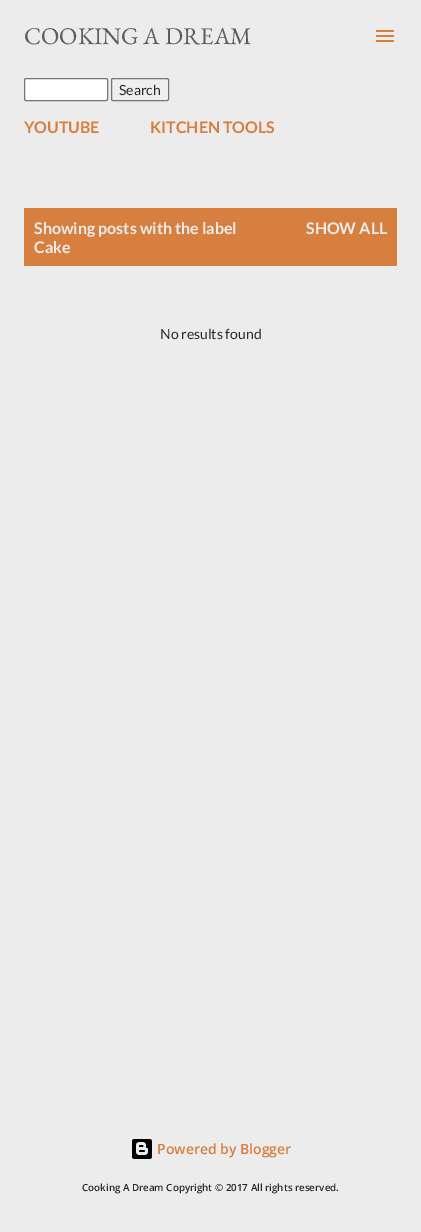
%!PS
<< /PageSize [421 1232] >> setpagedevice
/roundrect { 5 dict begin { /r /h /w /y /x } { exch def } forall
  x r add y moveto x w add y 2 copy h add r arct x w add y h add x 1 index r arct
  x y h add x y r arct x y 2 copy exch w add exch r arct closepath end } def
/picture { 5 dict begin { /h /w /y /x /name } { exch def } forall
  gsave x y translate w h scale
  w h 8 [w 0 0 h 0 0] name (r) file false 3 colorimage grestore end } def
0 1232 translate 1 -1 scale
4 setmiterlimit
0.925 setgray
0 0 421 1232 rectfill
/EBGaramond-Regular [24 0 0 -24 0 0] selectfont
0.369 0.361 0.38 setrgbcolor
24 44 moveto (COOKING A DREAM) show
1 setgray
24.5 78.5 83 22 1.5 roundrect gsave fill grestore
0.463 setgray
stroke
0.937 setgray
111.5 78.5 57 22 1.5 roundrect gsave fill grestore
0.463 setgray
stroke
/Lato-Regular [14 0 0 -14 0 0] selectfont
0.161 setgray
119 95 moveto (Search) show
(img1.rgb) 376 30 18 12 picture
/Lato-Bold [16 0 0 -16 0 0] selectfont
0.839 0.498 0.247 setrgbcolor
24 133 moveto (YOUTUBE) show
150 133 moveto (KITCHEN TOOLS) show
24 208 373 58 rectfill
0.925 setgray
34 234 moveto (Showing posts with the label) show
34 253 moveto (Cake) show
306 234 moveto (SHOW ALL) show
/Lato-Regular [14 0 0 -14 0 0] selectfont
0.161 setgray
160 339 moveto (No results found) show
(img2.rgb) 132 1139 20 20 picture
/OpenSans-SemiBold [14 0 0 -14 0 0] selectfont
0.839 0.498 0.247 setrgbcolor
157 1154 moveto (Powered by Blogger) show
/OpenSans-SemiBold [9.8 0 0 -9.8 0 0] selectfont
0.161 setgray
82 1191 moveto (Cooking A Dream Copyright © 2017 All rights reserved.) show
showpage
